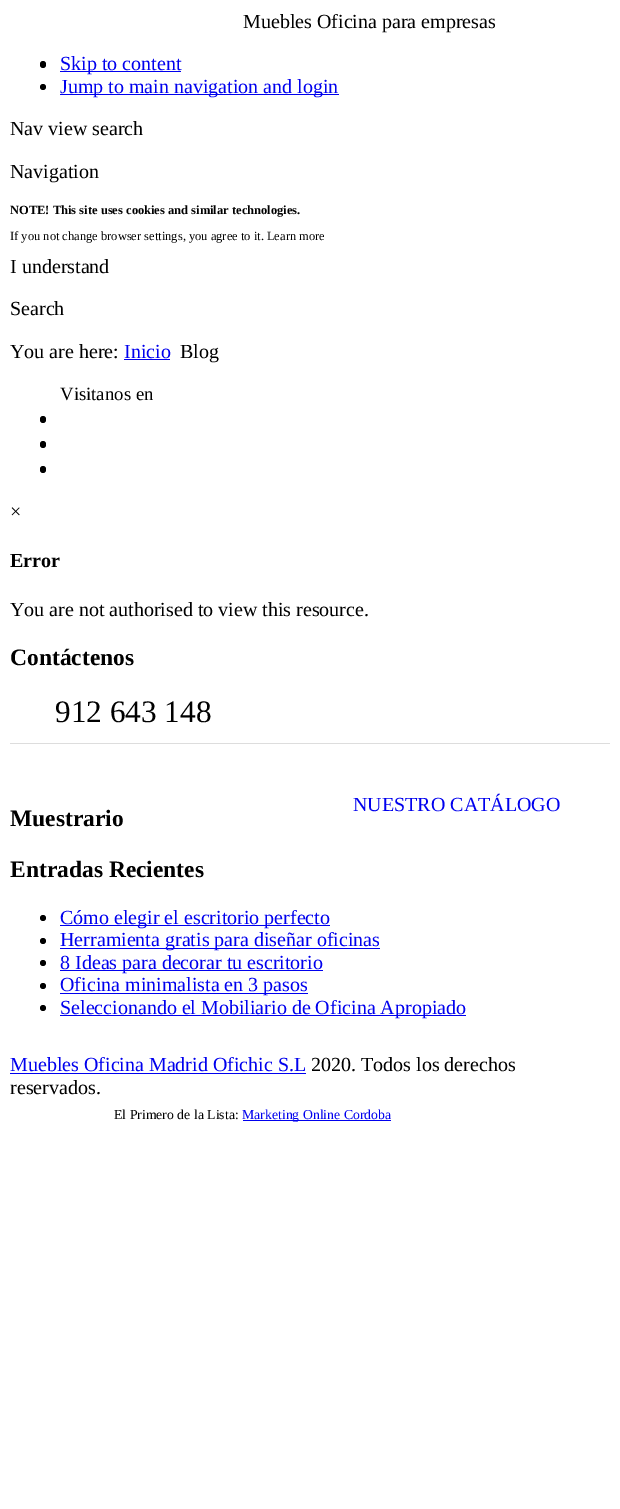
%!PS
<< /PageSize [620 1509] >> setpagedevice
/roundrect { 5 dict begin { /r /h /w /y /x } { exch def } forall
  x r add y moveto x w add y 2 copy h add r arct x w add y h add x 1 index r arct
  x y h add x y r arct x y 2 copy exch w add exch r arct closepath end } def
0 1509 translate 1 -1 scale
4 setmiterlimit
1 setgray
0 0 620 1509 rectfill
/LiberationSerif-Regular [20 0 0 -20 0 0] selectfont
0 setgray
243 28 moveto (Muebles Oficina para empresas) show
40 61 6 7 3 roundrect fill
0 0 0.933 setrgbcolor
60 71 121 1 rectfill
60 70 moveto (Skip to content) show
0 setgray
newpath 43 87 3 0 360 arc closepath fill
0 0 0.933 setrgbcolor
60 94 279 1 rectfill
60 93 moveto (Jump to main navigation and login) show
0 setgray
10 135 moveto (Nav view search) show
10 178 moveto (Navigation) show
/LiberationSerif-Bold [12.5 0 0 -12.5 0 0] selectfont
10 214 moveto (NOTE! This site uses cookies and similar technologies.) show
/LiberationSerif-Regular [12.5 0 0 -12.5 0 0] selectfont
10 240 moveto (If you not change browser settings, you agree to it. Learn more) show
/LiberationSerif-Regular [20 0 0 -20 0 0] selectfont
10 273 moveto (I understand) show
10 315 moveto (Search) show
10 358 moveto (You are here:) show
0 0 0.933 setrgbcolor
124 358 moveto (Inicio) show
124 359 46 1 rectfill
0 setgray
180 358 moveto (Blog) show
/LiberationSerif-Regular [18.75 0 0 -18.75 0 0] selectfont
60 400 moveto (Visitanos en) show
40 416 6 7 3 roundrect fill
40 441 6 7 3 roundrect fill
40 466 6 7 3 roundrect fill
/LiberationSerif-Regular [20 0 0 -20 0 0] selectfont
10 518 moveto (×) show
/LiberationSerif-Bold [20 0 0 -20 0 0] selectfont
10 567 moveto (Error) show
/LiberationSerif-Regular [20 0 0 -20 0 0] selectfont
10 616 moveto (You are not authorised to view this resource.) show
/LiberationSerif-Bold [23.5 0 0 -23.5 0 0] selectfont
10 665 moveto (Contáctenos) show
/LiberationSerif-Regular [31.25 0 0 -31.25 0 0] selectfont
55 722 moveto (912 643 148) show
0.867 setgray
10 743 600 1 rectfill
/LiberationSerif-Regular [20 0 0 -20 0 0] selectfont
0 0 0.933 setrgbcolor
353 811 moveto (NUESTRO CATÁLOGO) show
/LiberationSerif-Bold [23.5 0 0 -23.5 0 0] selectfont
0 setgray
10 826 moveto (Muestrario) show
10 877 moveto (Entradas Recientes) show
newpath 43 918 3 0 360 arc closepath fill
0 0 0.933 setrgbcolor
60 925 270 1 rectfill
/LiberationSerif-Regular [20 0 0 -20 0 0] selectfont
60 924 moveto (Cómo elegir el escritorio perfecto) show
0 setgray
newpath 43 941 3 0 360 arc closepath fill
0 0 0.933 setrgbcolor
60 948 320 1 rectfill
60 946 moveto (Herramienta gratis para diseñar oficinas) show
0 setgray
newpath 43 963 3 0 360 arc closepath fill
0 0 0.933 setrgbcolor
60 970 263 1 rectfill
60 969 moveto (8 Ideas para decorar tu escritorio) show
0 setgray
newpath 43 986 3 0 360 arc closepath fill
0 0 0.933 setrgbcolor
60 993 248 1 rectfill
60 991 moveto (Oficina minimalista en 3 pasos) show
0 setgray
newpath 43 1008 3 0 360 arc closepath fill
0 0 0.933 setrgbcolor
60 1015 406 1 rectfill
60 1014 moveto (Seleccionando el Mobiliario de Oficina Apropiado) show
10 1071 moveto (Muebles Oficina Madrid Ofichic S.L) show
10 1073 296 1 rectfill
0 setgray
311 1071 moveto (2020. Todos los derechos) show
10 1094 moveto (reservados.) show
/LiberationSerif-Regular [13.75 0 0 -13.75 0 0] selectfont
114 1119 moveto (El Primero de la Lista:) show
0 0 0.933 setrgbcolor
243 1120 148 1 rectfill
242 1119 moveto (Marketing Online Cordoba) show
showpage
